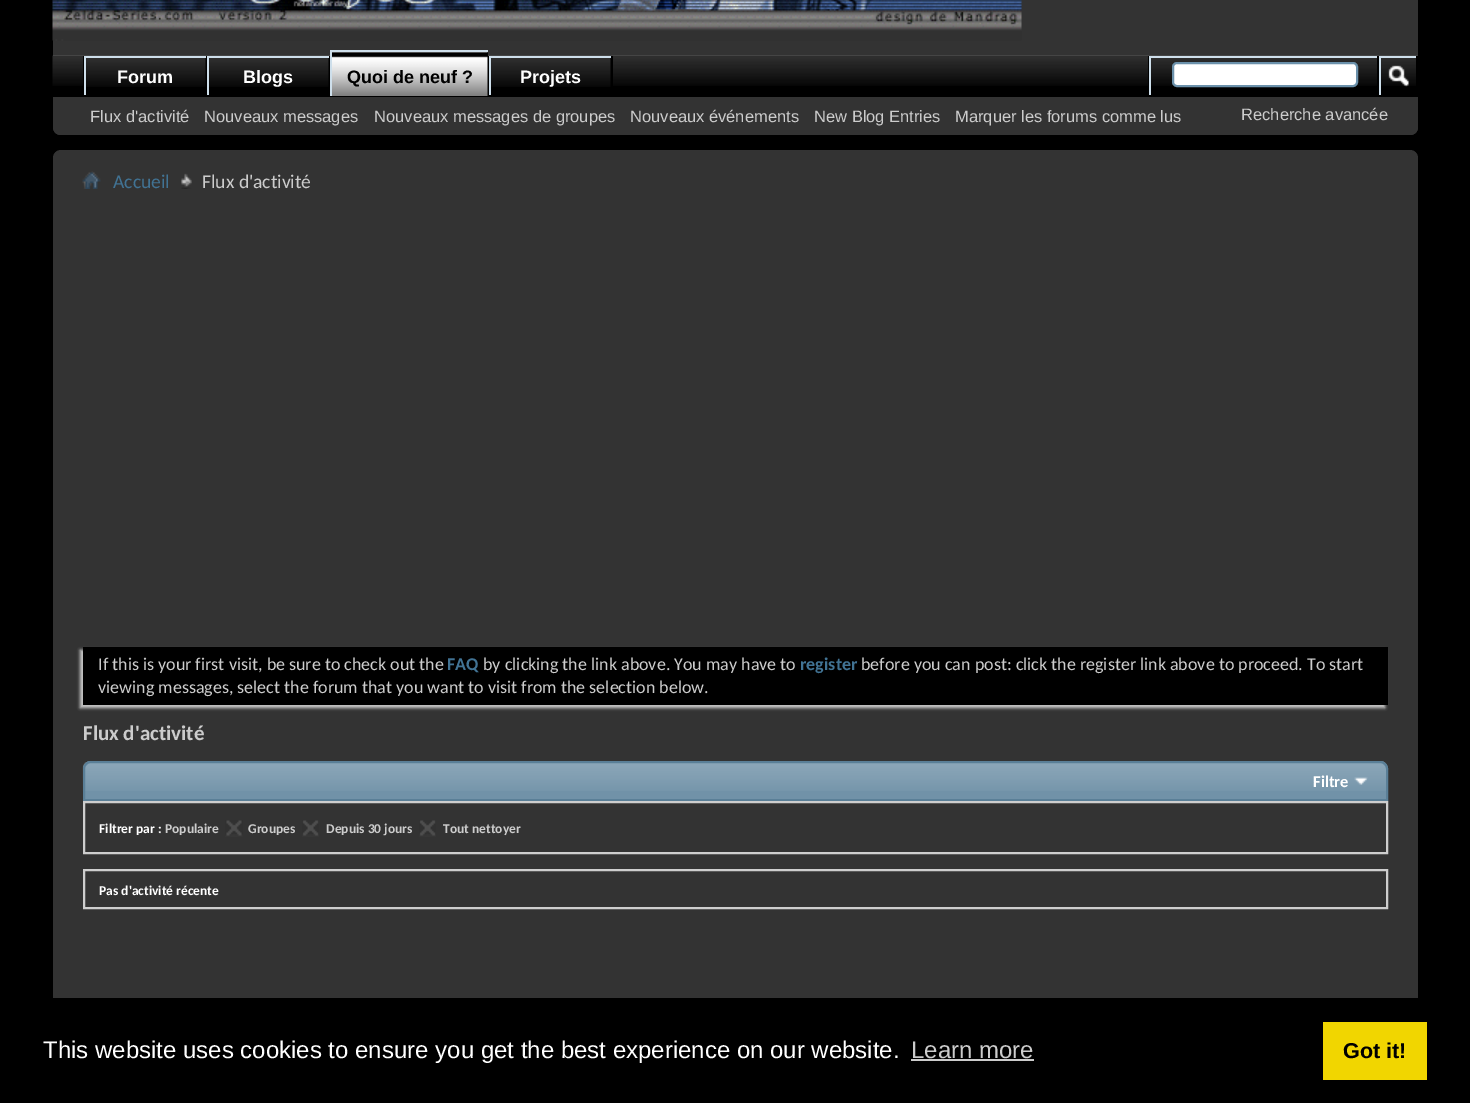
%!PS
<< /PageSize [1470 1103] /PageUsesTransparency true >> setpagedevice
/alpha { dup .setfillconstantalpha .setstrokeconstantalpha } def
/roundrect { 5 dict begin { /r /h /w /y /x } { exch def } forall
  x r add y moveto x w add y 2 copy h add r arct x w add y h add x 1 index r arct
  x y h add x y r arct x y 2 copy exch w add exch r arct closepath end } def
/shadow { 12 dict begin { /a /b /q /h /w /y /x } { exch def } forall gsave /was 0 def
  9 -2 -9 { dup b mul 4 div /e exch def 1 sub .425 mul 2.718 exch exp 1 add a .99 .min exch div /now exch def
    1 1 now sub 1 was sub div sub alpha /was now def
    w h .min e 2 mul add 0 gt { x e sub y e sub w e 2 mul add h e 2 mul add
      q e add b .6 mul add w h .min 2 div e add .min 0 .max roundrect fill } if } for grestore end } def
/picture { 5 dict begin { /h /w /y /x /name } { exch def } forall
  gsave x y translate w h scale
  w h 8 [w 0 0 h 0 0] name (r) file false 3 colorimage grestore end } def
0 .pushpdf14devicefilter
0 1103 translate 1 -1 scale
4 setmiterlimit
0 setgray
0 0 1470 1103 rectfill
0.2 setgray
newpath 53 -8 moveto 1418 -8 lineto 1418 127 lineto 1418 131.5 1414.5 135 1410 135 curveto 61 135 lineto 56.5 135 53 131.5 53 127 curveto closepath fill
(img1.rgb) 52 0 970 41 picture
newpath 53 56 moveto 1418 56 lineto 1418 127 lineto 1418 131.5 1414.5 135 1410 135 curveto 61 135 lineto 56.5 135 53 131.5 53 127 curveto closepath fill
0 setgray
53 56 1363 39 rectfill
(img2.rgb) 52 55 1366 31 picture
206 56 1 40 rectfill
83 56 1 40 rectfill
86 58 120 28 rectfill
(img3.rgb) 86 58 120 29 picture
0.808 0.875 0.922 setrgbcolor
84 56 122 2 rectfill
84 56 2 40 rectfill
/LiberationSans-Bold [18 0 0 -18 0 0] selectfont
1 setgray
117 83 moveto (Forum) show
0 setgray
329 56 1 40 rectfill
209 58 120 28 rectfill
(img3.rgb) 209 58 120 29 picture
0.808 0.875 0.922 setrgbcolor
207 56 122 2 rectfill
207 56 2 40 rectfill
1 setgray
243 83 moveto (Blogs) show
0 setgray
488 56 1 30 rectfill
332 52 156 34 rectfill
611 56 2 40 rectfill
0.808 0.875 0.922 setrgbcolor
489 56 122 2 rectfill
489 56 2 40 rectfill
0 setgray
53 95 1365 2 rectfill
(img4.rgb) 332 52 156 44 picture
0.808 0.875 0.922 setrgbcolor
330 50 158 2 rectfill
330 50 2 46 rectfill
0 setgray
347 83 moveto (Quoi de neuf ?) show
491 58 120 28 rectfill
(img3.rgb) 491 58 120 29 picture
1 setgray
520 83 moveto (Projets) show
/LiberationSans-Regular [16.5 0 0 -16.5 0 0] selectfont
0.8 setgray
90 122 moveto (Flux d'activité) show
204 122 moveto (Nouveaux messages) show
374 122 moveto (Nouveaux messages de groupes) show
630 122 moveto (Nouveaux événements) show
814 122 moveto (New Blog Entries) show
955 122 moveto (Marquer les forums comme lus) show
0 setgray
1148 56 1 30 rectfill
0.808 0.875 0.922 setrgbcolor
1149 56 228 2 rectfill
1149 56 2 39 rectfill
1 setgray
1173 63 184 23 4 roundrect gsave fill grestore
0.42 0.569 0.671 setrgbcolor
2 setlinewidth
stroke
0 setgray
1416 56 2 39 rectfill
1377 56 2 30 rectfill
0.808 0.875 0.922 setrgbcolor
1379 56 37 2 rectfill
1379 56 2 39 rectfill
(img5.rgb) 1388 65 21 22 picture
0.8 setgray
1241 120 moveto (Recherche avancée) show
0.2 setgray
53 150 1365 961 8 roundrect fill
(img6.rgb) 82 171 19 18 picture
(img7.rgb) 181 173 11 16 picture
/Carlito-Regular [19.5 0 0 -19.5 0 0] selectfont
0.255 0.451 0.58 setrgbcolor
113 188 moveto (Accueil) show
0.8 setgray
202 188 moveto (Flux d'activité) show
0.784 setgray
80 650 1305 58 0 1.5 1 shadow
0 setgray
83 647 1305 58 rectfill
/Carlito-Regular [18 0 0 -18 0 0] selectfont
0.8 setgray
98 670 moveto (If this is your first visit, be sure to check out the) show
/Carlito-Bold [18 0 0 -18 0 0] selectfont
0.255 0.451 0.58 setrgbcolor
447 670 moveto (FAQ) show
/Carlito-Regular [18 0 0 -18 0 0] selectfont
0.8 setgray
483 670 moveto (by clicking the link above. You may have to) show
/Carlito-Bold [18 0 0 -18 0 0] selectfont
0.255 0.451 0.58 setrgbcolor
800 670 moveto (register) show
/Carlito-Regular [18 0 0 -18 0 0] selectfont
0.8 setgray
861 670 moveto (before you can post: click the register link above to proceed. To start) show
98 693 moveto (viewing messages, select the forum that you want to visit from the selection below.) show
/Carlito-Bold [21 0 0 -21 0 0] selectfont
83 740 moveto (Flux d'activité) show
0.443 0.573 0.659 setrgbcolor
newpath 91 761 moveto 1380 761 lineto 1384.5 761 1388 764.5 1388 769 curveto 1388 801 lineto 83 801 lineto 83 769 lineto 83 764.5 86.5 761 91 761 curveto closepath fill
(img8.rgb) 82 762 1306 29 picture
0.353 0.498 0.592 setrgbcolor
newpath 91 762 moveto 1380 762 lineto 1384 762 1387 765 1387 769 curveto 1387 800 lineto 84 800 lineto 84 769 lineto 84 765 87 762 91 762 curveto closepath stroke
(img9.rgb) 1354 777 14 8 picture
/Carlito-Bold [16.5 0 0 -16.5 0 0] selectfont
1 setgray
1313 787 moveto (Filtre) show
0.808 setgray
84 802 1303 51 rectstroke
/Carlito-Bold [13.5 0 0 -13.5 0 0] selectfont
1 setgray
99 833 moveto (Filtrer par :) show
0.8 setgray
165 833 moveto (Populaire) show
(img10.rgb) 225 820 18 17 picture
248 833 moveto (Groupes) show
(img11.rgb) 302 820 17 17 picture
326 833 moveto (Depuis 30 jours) show
(img11.rgb) 419 820 17 17 picture
443 833 moveto (Tout nettoyer) show
0.808 setgray
84 870 1303 38 rectstroke
1 setgray
99 895 moveto (Pas d'activité récente) show
0 setgray
53 998 1365 105 rectfill
/LiberationSans-Regular [24 0 0 -24 0 0] selectfont
1 setgray
43 1058 moveto (This website uses cookies to ensure you get the best experience on our website.) show
0.8 setgray
911 1058 moveto (Learn more) show
911 1059 123 2 rectfill
0.945 0.839 0 setrgbcolor
1323 1022 104 58 rectfill
/LiberationSans-Bold [21.5 0 0 -21.5 0 0] selectfont
0 setgray
1343 1058 moveto (Got it!) show
.poppdf14devicefilter showpage
